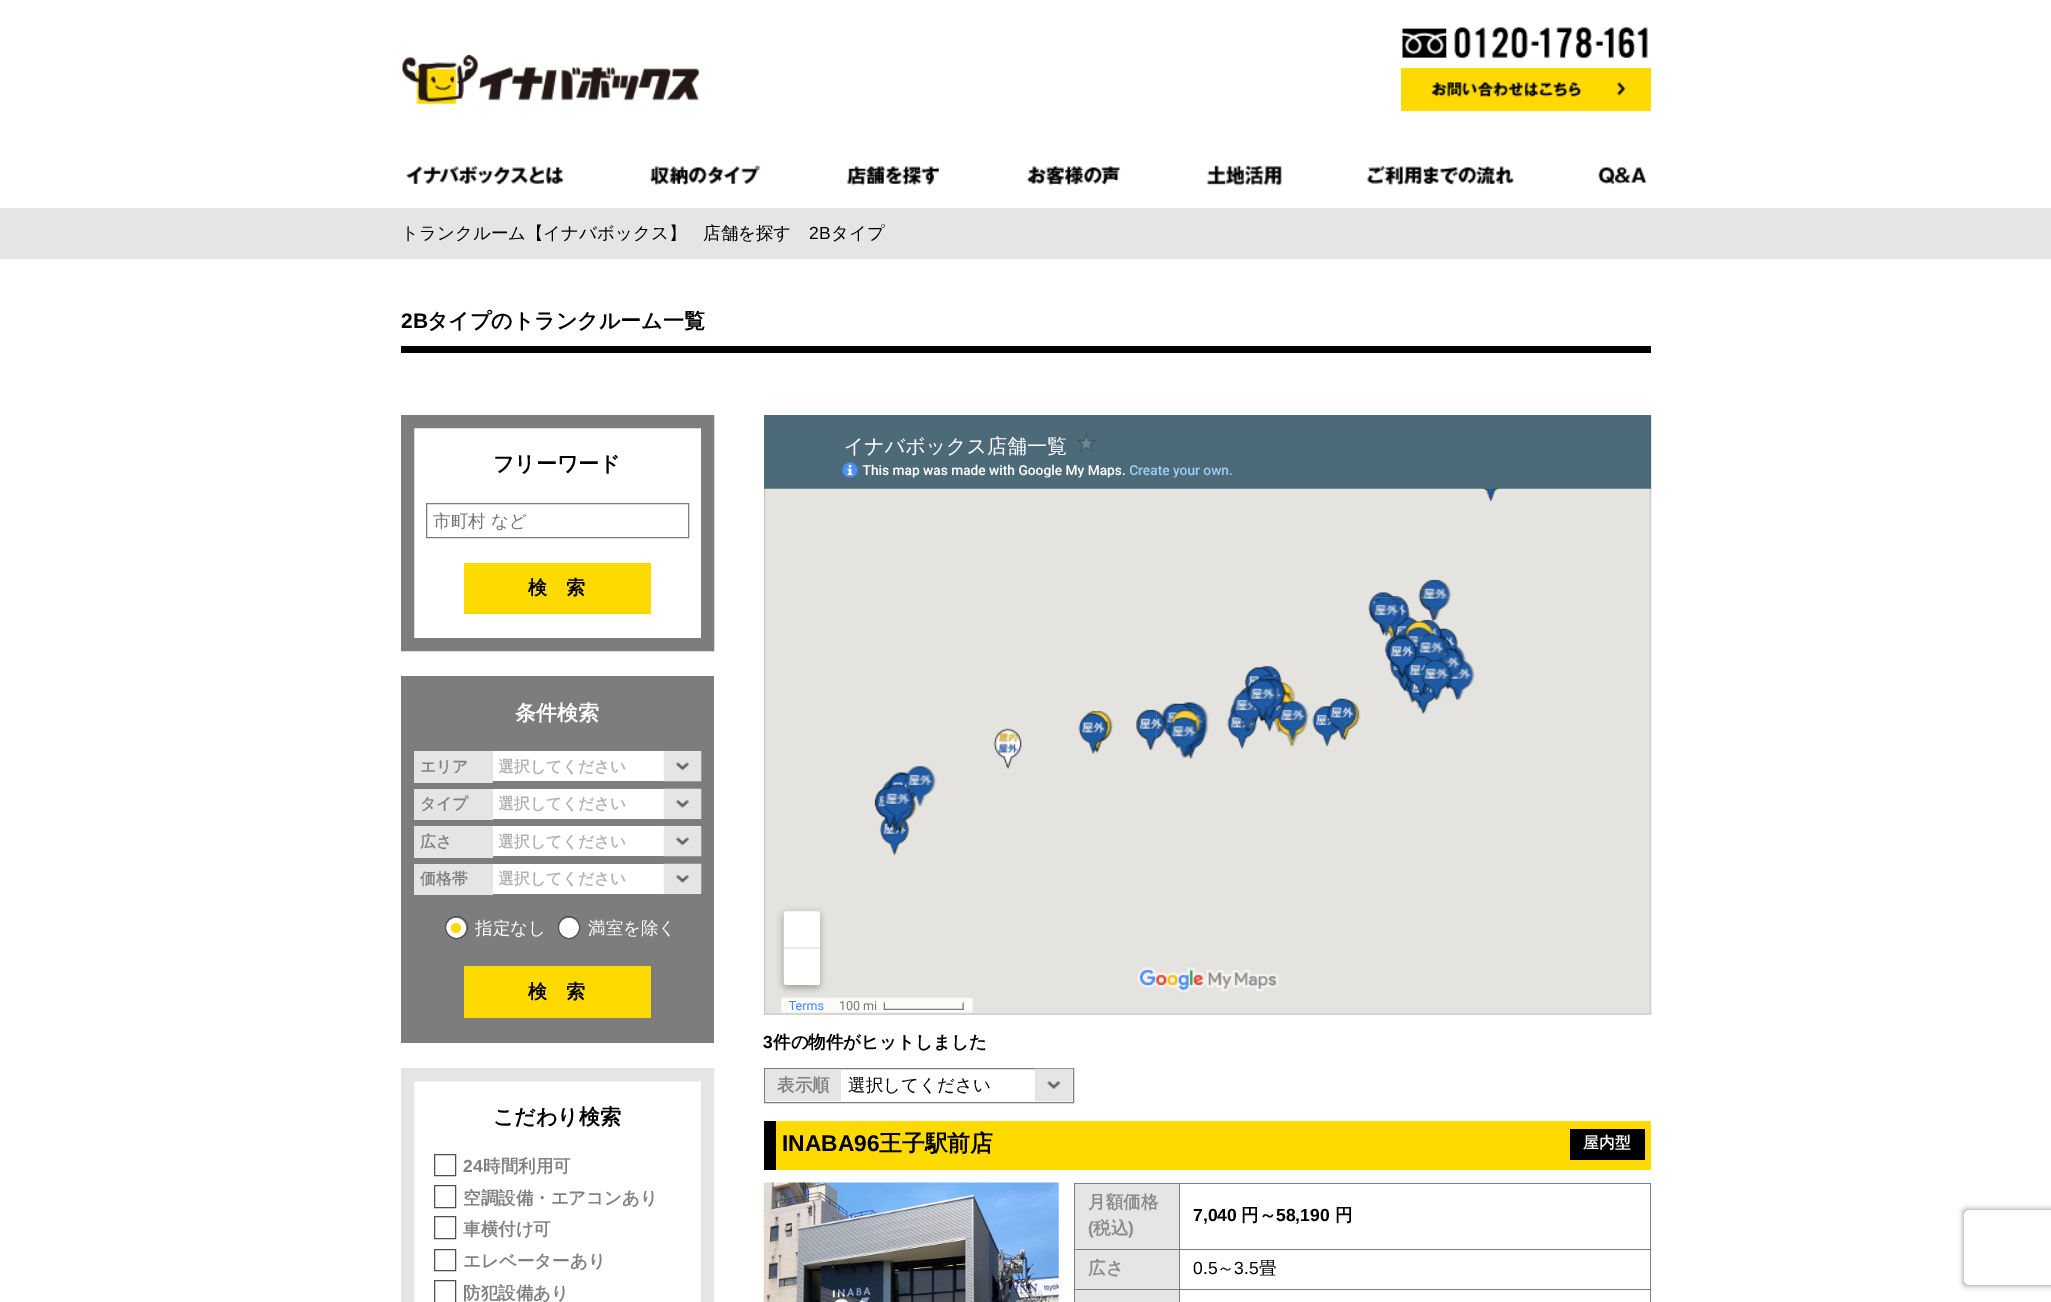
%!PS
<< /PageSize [2051 1302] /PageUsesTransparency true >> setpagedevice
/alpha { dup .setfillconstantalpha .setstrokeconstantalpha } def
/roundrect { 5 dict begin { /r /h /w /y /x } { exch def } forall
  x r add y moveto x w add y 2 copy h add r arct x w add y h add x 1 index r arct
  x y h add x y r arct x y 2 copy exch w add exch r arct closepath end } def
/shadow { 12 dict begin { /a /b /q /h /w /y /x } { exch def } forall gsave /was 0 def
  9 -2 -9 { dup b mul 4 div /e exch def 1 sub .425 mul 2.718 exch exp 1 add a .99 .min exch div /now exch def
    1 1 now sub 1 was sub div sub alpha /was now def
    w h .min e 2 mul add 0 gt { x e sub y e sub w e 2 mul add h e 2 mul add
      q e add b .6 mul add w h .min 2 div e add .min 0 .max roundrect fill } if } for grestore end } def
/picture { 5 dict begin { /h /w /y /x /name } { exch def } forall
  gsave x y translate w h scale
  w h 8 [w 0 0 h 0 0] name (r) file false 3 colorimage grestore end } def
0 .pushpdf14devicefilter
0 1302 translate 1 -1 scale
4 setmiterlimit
1 setgray
0 0 2051 1302 rectfill
(img1.rgb) 402 54 297 50 picture
(img2.rgb) 1402 27 246 31 picture
0.996 0.855 0 setrgbcolor
1401 68 250 43 rectfill
(img3.rgb) 1431 81 195 16 picture
(img4.rgb) 406 166 158 20 picture
(img5.rgb) 650 165 111 21 picture
(img6.rgb) 846 166 93 20 picture
(img7.rgb) 1027 166 94 20 picture
(img8.rgb) 1207 165 75 21 picture
(img9.rgb) 1367 165 147 21 picture
(img10.rgb) 1598 167 49 18 picture
0.898 setgray
0 208 2051 51 rectfill
/WenQuanYiZenHei-Medium [17.5 0 0 -17.5 0 0] selectfont
0 setgray
401 239 moveto (トランクルーム【イナバボックス】) show
703 239 moveto (店舗を探す) show
/LiberationSans-Regular [17.5 0 0 -17.5 0 0] selectfont
809 239 moveto (2B) show
/WenQuanYiZenHei-Medium [17.5 0 0 -17.5 0 0] selectfont
831 239 moveto (タイプ) show
401 346 1250 7 rectfill
/LiberationSans-Bold [21 0 0 -21 0 0] selectfont
401 328 moveto (2B) show
/WenQuanYiZenHei-Bold [21 0 0 -21 0 0] selectfont
427 328 moveto (タイプのトランクルーム一覧) show
0.49 setgray
13 setlinewidth
407.5 421.5 300 223 rectstroke
0 setgray
493 471 moveto (フリーワード) show
0.49 setgray
1 setlinewidth
426.5 503.5 262 34 rectstroke
/WenQuanYiZenHei-Medium [17.5 0 0 -17.5 0 0] selectfont
0.459 setgray
433 527 moveto (市町村 など) show
1 0.855 0 setrgbcolor
464 563 187 51 rectfill
/WenQuanYiZenHei-Bold [19 0 0 -19 0 0] selectfont
0 setgray
528 594 moveto 19 0 (検索) ashow
0.49 setgray
401 676 313 367 rectfill
/WenQuanYiZenHei-Bold [21 0 0 -21 0 0] selectfont
1 setgray
515 720 moveto (条件検索) show
0.898 setgray
414 751 79 32 rectfill
/WenQuanYiZenHei-Bold [15.75 0 0 -15.75 0 0] selectfont
0.506 setgray
420 772 moveto (エリア) show
1 setgray
493 751 208 30 rectfill
(img11.rgb) 663 751 39 31 picture
gsave
499 758 159 17 rectclip
0.702 setgray
498 772 moveto (選択してください) show
grestore
0.898 setgray
414 789 79 31 rectfill
0.506 setgray
420 809 moveto (タイプ) show
1 setgray
493 789 208 30 rectfill
(img12.rgb) 663 788 39 31 picture
gsave
499 795 159 18 rectclip
0.702 setgray
498 809 moveto (選択してください) show
grestore
0.898 setgray
414 826 79 32 rectfill
0.506 setgray
420 847 moveto (広さ) show
1 setgray
493 826 208 30 rectfill
(img11.rgb) 663 826 39 31 picture
gsave
499 833 159 17 rectclip
0.702 setgray
498 847 moveto (選択してください) show
grestore
0.898 setgray
414 864 79 31 rectfill
0.506 setgray
420 884 moveto (価格帯) show
1 setgray
493 864 208 30 rectfill
(img12.rgb) 663 863 39 31 picture
gsave
499 870 159 18 rectclip
0.702 setgray
498 884 moveto (選択してください) show
grestore
newpath 456 928 10 0 360 arc closepath fill
0.314 setgray
newpath 456.5 927.5 11 0 360 arc closepath stroke
/WenQuanYiZenHei-Medium [17.5 0 0 -17.5 0 0] selectfont
1 setgray
475 934 moveto (指定なし) show
1 0.855 0 setrgbcolor
newpath 456 928 5 0 360 arc closepath fill
1 setgray
newpath 569 928 10 0 360 arc closepath fill
0.314 setgray
558.5 916.5 21 22 10.5 roundrect stroke
1 setgray
588 934 moveto (満室を除く) show
1 0.855 0 setrgbcolor
464 966 187 52 rectfill
/WenQuanYiZenHei-Bold [19 0 0 -19 0 0] selectfont
0 setgray
528 998 moveto 19 0 (検索) ashow
0.898 setgray
13 setlinewidth
407.5 1074.5 300 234 rectstroke
/WenQuanYiZenHei-Bold [21 0 0 -21 0 0] selectfont
0 setgray
493 1124 moveto (こだわり検索) show
0.314 setgray
1 setlinewidth
434.5 1154.5 21 21 rectstroke
/LiberationSans-Bold [17.5 0 0 -17.5 0 0] selectfont
0.506 setgray
463 1172 moveto (24) show
/WenQuanYiZenHei-Bold [17.5 0 0 -17.5 0 0] selectfont
483 1172 moveto (時間利用可) show
0.314 setgray
434.5 1185.5 21 22 rectstroke
0.506 setgray
463 1204 moveto (空調設備・エアコンあり) show
0.314 setgray
434.5 1216.5 21 22 rectstroke
0.506 setgray
463 1235 moveto (車横付け可) show
0.314 setgray
434.5 1249.5 21 21 rectstroke
0.506 setgray
463 1267 moveto (エレベーターあり) show
0.314 setgray
434.5 1280.5 21 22 rectstroke
0.506 setgray
463 1299 moveto (防犯設備あり) show
(img13.rgb) 764 415 888 600 picture
/LiberationSans-Bold [17.5 0 0 -17.5 0 0] selectfont
0 setgray
763 1048 moveto (3) show
/WenQuanYiZenHei-Bold [17.5 0 0 -17.5 0 0] selectfont
773 1048 moveto (件の物件がヒットしました) show
0.49 setgray
764.5 1068.5 309 34 rectstroke
0.898 setgray
765 1069 76 32 rectfill
0.506 setgray
777 1091 moveto (表示順) show
(img14.rgb) 1035 1068 38 34 picture
/WenQuanYiZenHei-Medium [17.5 0 0 -17.5 0 0] selectfont
0 setgray
848 1091 moveto (選択してください) show
1 0.855 0 setrgbcolor
776 1121 875 49 rectfill
0 setgray
764 1121 12 49 rectfill
/LiberationSans-Bold [22.75 0 0 -22.75 0 0] selectfont
782 1151 moveto (INABA96) show
/WenQuanYiZenHei-Bold [22.75 0 0 -22.75 0 0] selectfont
879 1151 moveto (王子駅前店) show
1570 1129 75 31 rectfill
/WenQuanYiZenHei-Bold [15.75 0 0 -15.75 0 0] selectfont
1 setgray
1583 1148 moveto (屋内型) show
(img15.rgb) 763 1182 296 120 picture
0.49 setgray
1074 1183 577 1 rectfill
1650 1183 1 119 rectfill
1074 1183 1 119 rectfill
0.898 setgray
1075 1184 104 65 rectfill
/WenQuanYiZenHei-Bold [17.5 0 0 -17.5 0 0] selectfont
0.545 setgray
1088 1208 moveto (月額価格) show
/LiberationSans-Bold [17.5 0 0 -17.5 0 0] selectfont
1088 1234 moveto (\() show
/WenQuanYiZenHei-Bold [17.5 0 0 -17.5 0 0] selectfont
1093 1234 moveto (税込) show
/LiberationSans-Bold [17.5 0 0 -17.5 0 0] selectfont
1128 1234 moveto (\)) show
0.49 setgray
1179 1249 472 1 rectfill
1179 1289 472 1 rectfill
1179 1289 1 13 rectfill
1074 1289 106 1 rectfill
1179 1249 1 41 rectfill
1074 1249 106 1 rectfill
1179 1183 1 67 rectfill
0 setgray
1193 1221 moveto (7,040) show
/WenQuanYiZenHei-Bold [17.5 0 0 -17.5 0 0] selectfont
1241 1221 moveto (円～) show
/LiberationSans-Bold [17.5 0 0 -17.5 0 0] selectfont
1276 1221 moveto (58,190) show
/WenQuanYiZenHei-Bold [17.5 0 0 -17.5 0 0] selectfont
1335 1221 moveto (円) show
0.898 setgray
1075 1250 104 39 rectfill
0.545 setgray
1088 1274 moveto (広さ) show
/LiberationSans-Regular [17.5 0 0 -17.5 0 0] selectfont
0 setgray
1193 1274 moveto (0.5) show
/WenQuanYiZenHei-Medium [17.5 0 0 -17.5 0 0] selectfont
1217 1274 moveto (～) show
/LiberationSans-Regular [17.5 0 0 -17.5 0 0] selectfont
1234 1274 moveto (3.5) show
/WenQuanYiZenHei-Medium [17.5 0 0 -17.5 0 0] selectfont
1259 1274 moveto (畳) show
0.898 setgray
1075 1290 104 12 rectfill
gsave
newpath 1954 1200 moveto 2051 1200 lineto 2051 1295 lineto 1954 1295 lineto closepath 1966.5 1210 moveto 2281.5 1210 lineto 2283 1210 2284 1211 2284 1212.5 curveto 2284 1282.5 lineto 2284 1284 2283 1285 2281.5 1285 curveto 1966.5 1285 lineto 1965 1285 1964 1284 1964 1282.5 curveto 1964 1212.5 lineto 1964 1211 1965 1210 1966.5 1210 curveto closepath eoclip newpath
0.502 setgray
1964 1210 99 75 2.5 3 1 shadow
grestore
.poppdf14devicefilter showpage
